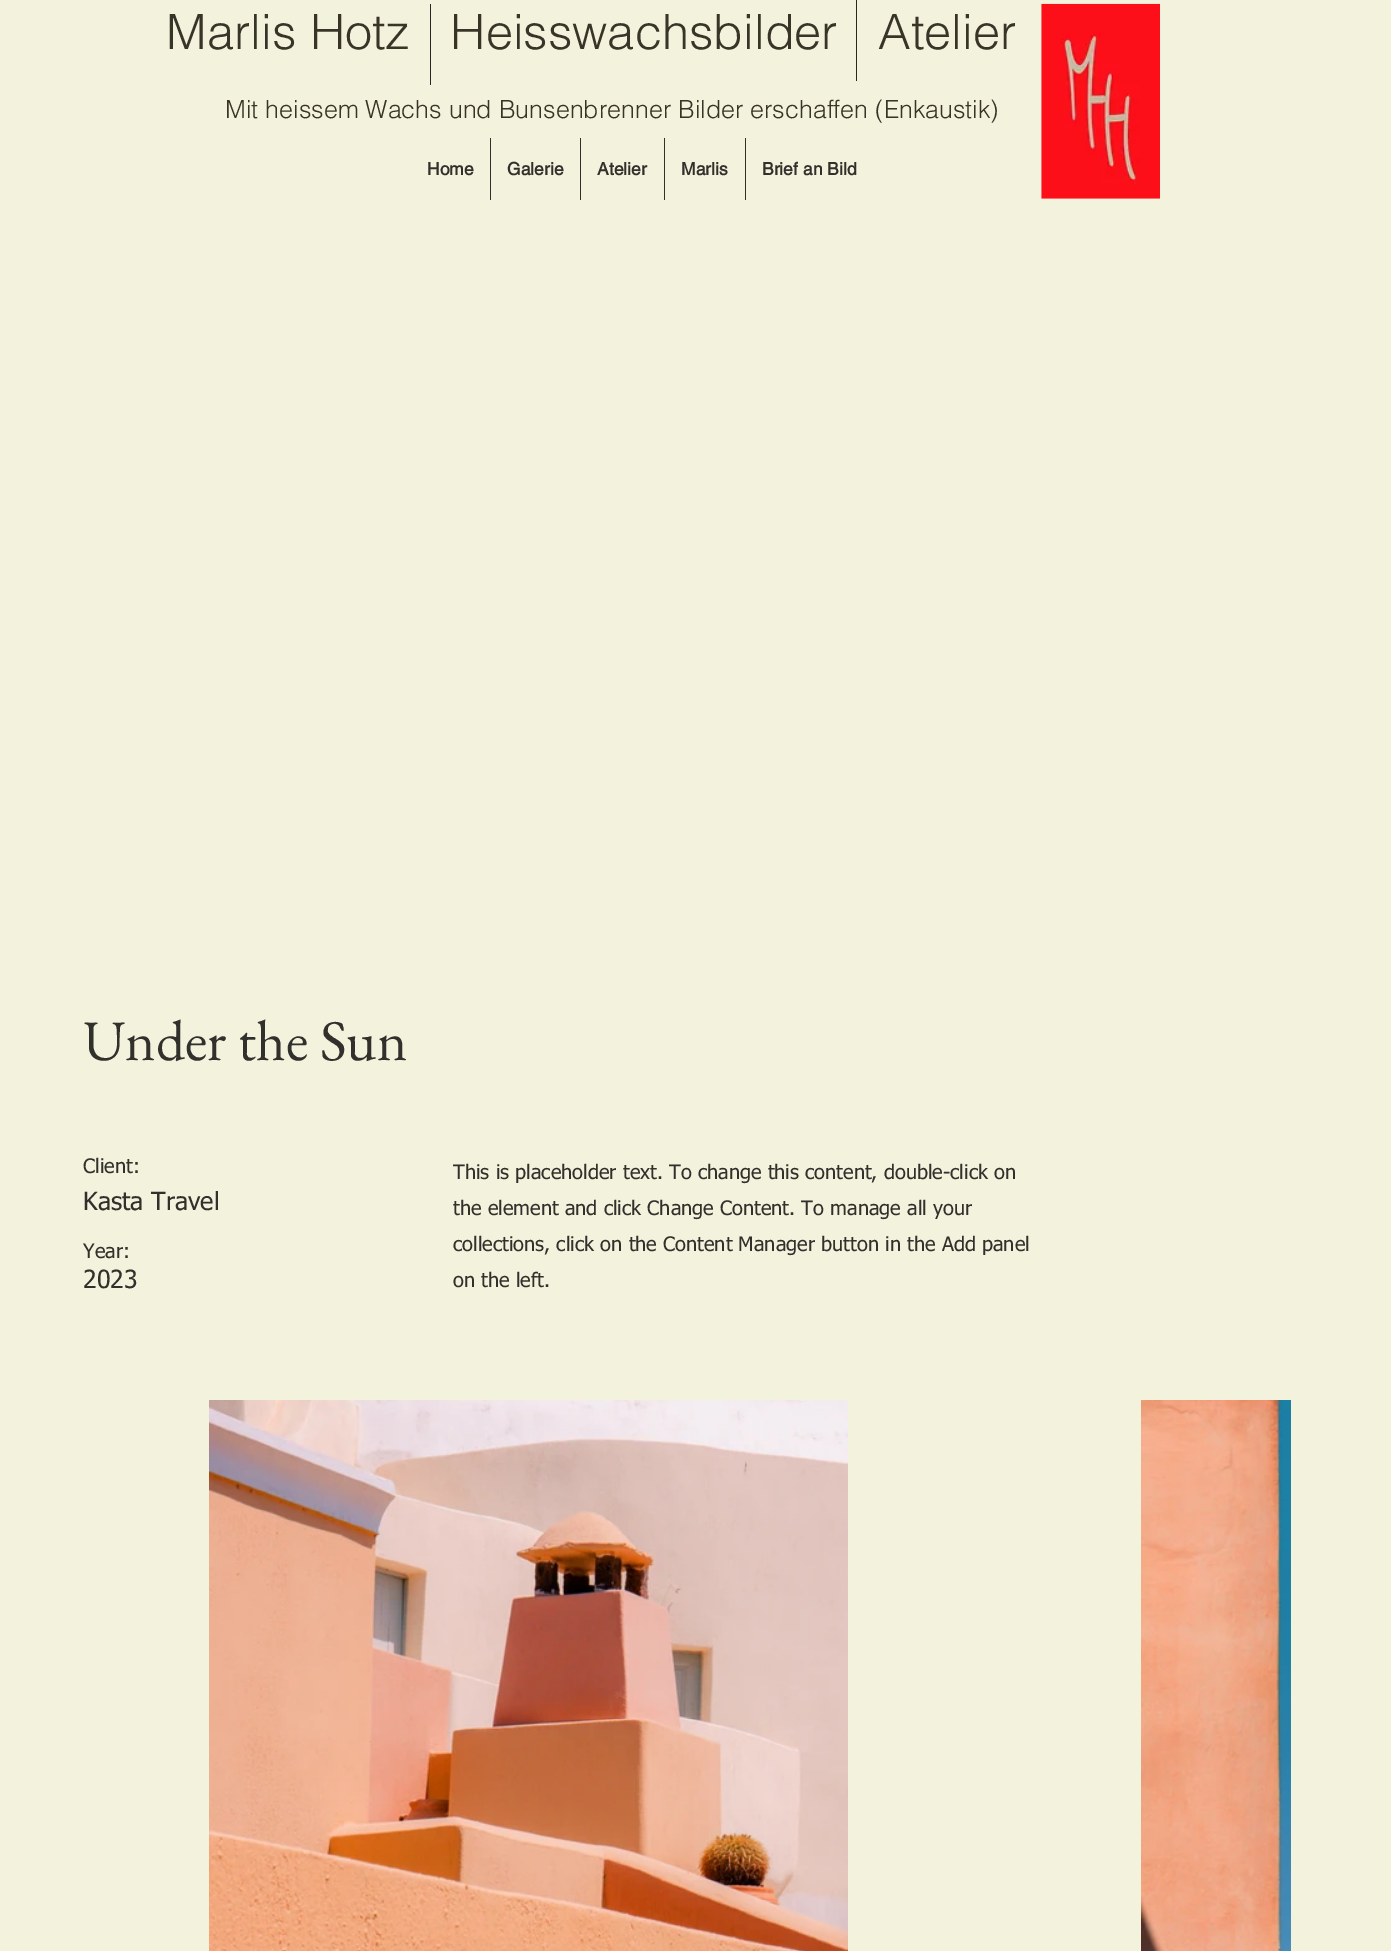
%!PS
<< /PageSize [1391 1951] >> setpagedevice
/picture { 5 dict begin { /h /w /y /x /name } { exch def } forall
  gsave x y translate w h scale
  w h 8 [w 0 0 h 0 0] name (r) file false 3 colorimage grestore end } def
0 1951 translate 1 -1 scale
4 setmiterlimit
0.953 0.949 0.863 setrgbcolor
0 0 1391 1951 rectfill
/helvetica-Light [48.75 0 0 -48.75 0 0] selectfont
0.22 0.204 0.153 setrgbcolor
166 49 moveto (Marlis Hotz   Heisswachsbilder   Atelier) show
0.157 0.149 0.149 setrgbcolor
430 4 1 81 rectfill
856 0 1 81 rectfill
(img1.rgb) 1041 3 119 196 picture
/helvetica-Light [25 0 0 -25 0 0] selectfont
0.22 0.204 0.153 setrgbcolor
225 118 moveto (Mit heissem Wachs und Bunsenbrenner Bilder erschaffen \(Enkaustik\)) show
/helvetica-Bold [17.5 0 0 -17.5 0 0] selectfont
0.192 0.188 0.173 setrgbcolor
427 175 moveto (Home) show
490 138 1 62 rectfill
507 175 moveto (Galerie) show
580 138 1 62 rectfill
597 175 moveto (Atelier) show
664 138 1 62 rectfill
681 175 moveto (Marlis) show
745 138 1 62 rectfill
762 175 moveto (Brief an Bild) show
/EBGaramond-Regular [57.5 0 0 -57.5 0 0] selectfont
83 1060 moveto (Under the Sun) show
/tahoma-Regular [20 0 0 -20 0 0] selectfont
83 1173 moveto (Client:) show
453 1179 moveto (This is placeholder text. To change this content, double-click on) show
453 1215 moveto (the element and click Change Content. To manage all your) show
453 1251 moveto (collections, click on the Content Manager button in the Add panel) show
453 1287 moveto (on the left.) show
/tahoma-Regular [25 0 0 -25 0 0] selectfont
83 1210 moveto (Kasta Travel) show
/tahoma-Regular [20 0 0 -20 0 0] selectfont
83 1258 moveto (Year:) show
/tahoma-Regular [25 0 0 -25 0 0] selectfont
83 1288 moveto (2023) show
(img2.rgb) 209 1400 639 551 picture
(img3.rgb) 1141 1400 150 551 picture
showpage
